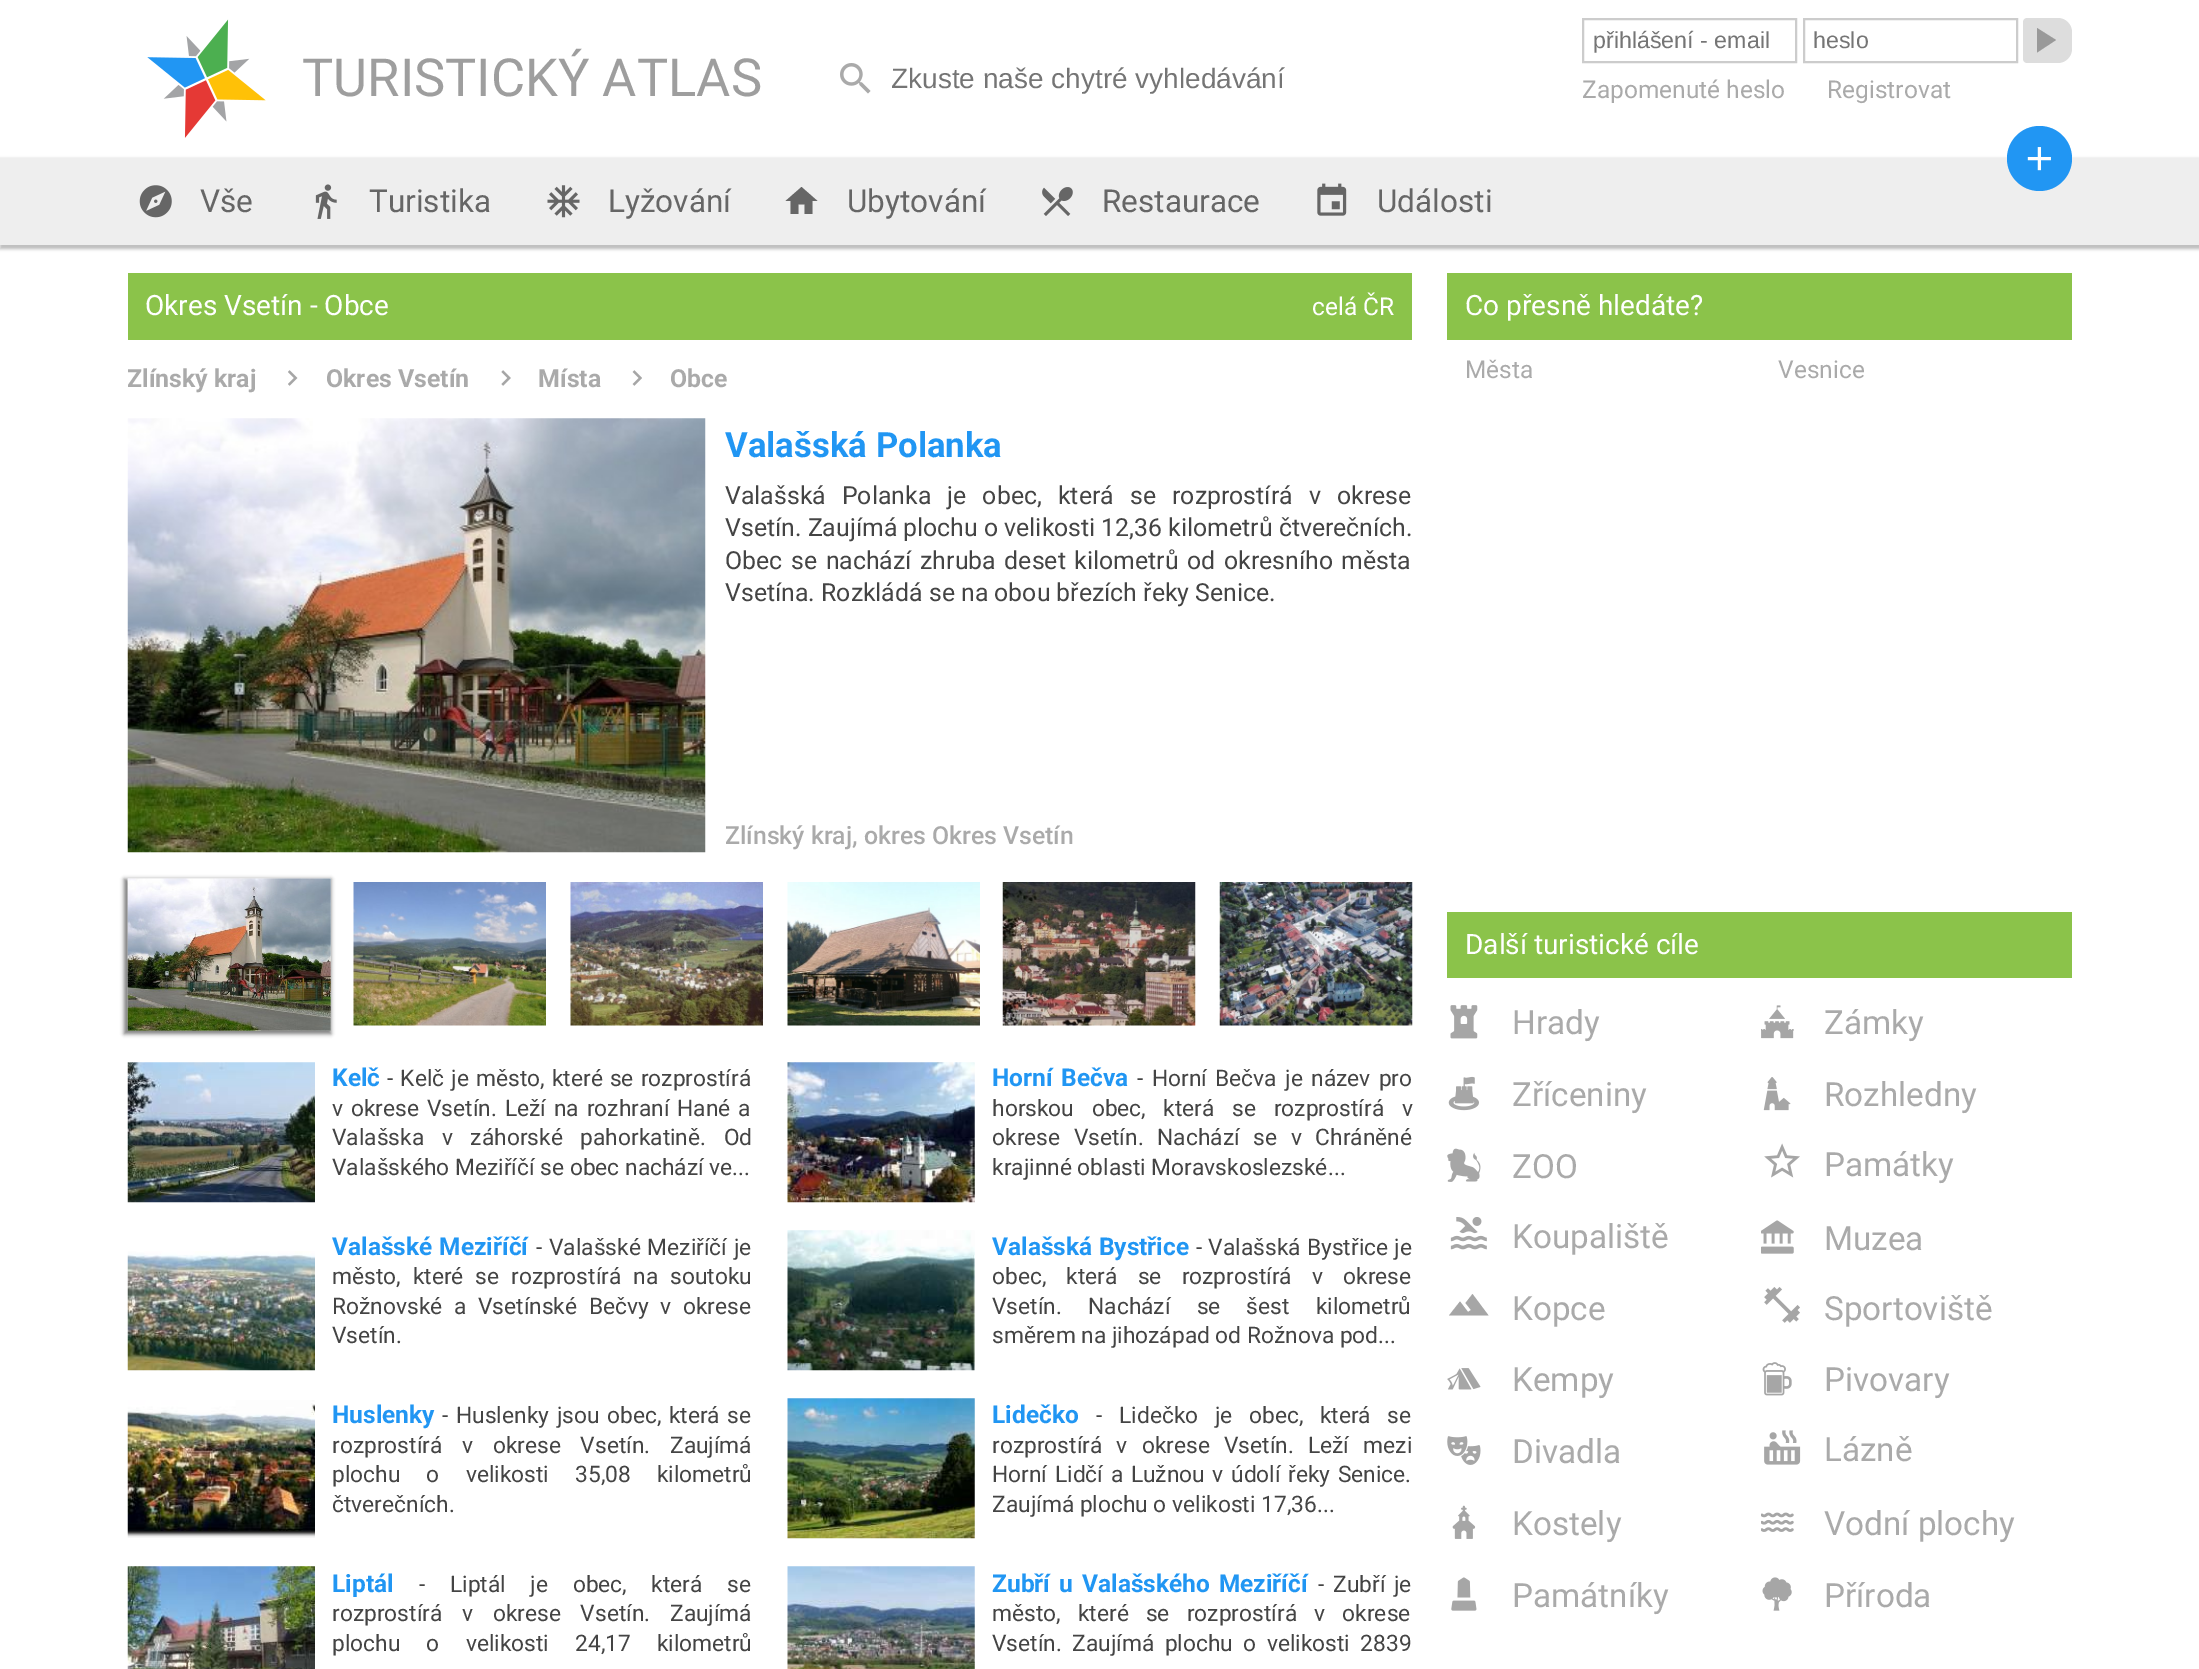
%!PS
<< /PageSize [2199 1669] /PageUsesTransparency true >> setpagedevice
/alpha { dup .setfillconstantalpha .setstrokeconstantalpha } def
/roundrect { 5 dict begin { /r /h /w /y /x } { exch def } forall
  x r add y moveto x w add y 2 copy h add r arct x w add y h add x 1 index r arct
  x y h add x y r arct x y 2 copy exch w add exch r arct closepath end } def
/shadow { 12 dict begin { /a /b /q /h /w /y /x } { exch def } forall gsave /was 0 def
  9 -2 -9 { dup b mul 4 div /e exch def 1 sub .425 mul 2.718 exch exp 1 add a .99 .min exch div /now exch def
    1 1 now sub 1 was sub div sub alpha /was now def
    w h .min e 2 mul add 0 gt { x e sub y e sub w e 2 mul add h e 2 mul add
      q e add b .6 mul add w h .min 2 div e add .min 0 .max roundrect fill } if } for grestore end } def
/picture { 5 dict begin { /h /w /y /x /name } { exch def } forall
  gsave x y translate w h scale
  w h 8 [w 0 0 h 0 0] name (r) file false 3 colorimage grestore end } def
0 .pushpdf14devicefilter
0 1669 translate 1 -1 scale
4 setmiterlimit
1 setgray
0 0 2199 1669 rectfill
(img1.rgb) 147 19 119 119 picture
/Roboto-Regular [52.5 0 0 -52.5 0 0] selectfont
0.62 setgray
302 96 moveto (TURISTICKÝ ATLAS) show
(img2.rgb) 840 63 31 31 picture
/LiberationSans-Regular [28 0 0 -28 0 0] selectfont
0.459 setgray
891 88 moveto (Zkuste naše chytré vyhledávání) show
0.8 setgray
2 setlinewidth
1583 19 213 43 rectstroke
/LiberationSans-Regular [23.25 0 0 -23.25 0 0] selectfont
0.459 setgray
1593 48 moveto (přihlášení - email) show
0.8 setgray
1804 19 213 43 rectstroke
0.459 setgray
1813 48 moveto (heslo) show
0.867 setgray
newpath 2027 18 moveto 2058 18 lineto 2065.5 18 2072 24.5 2072 32 curveto 2072 49 lineto 2072 56.5 2065.5 63 2058 63 curveto 2027 63 lineto 2025 63 2023 61 2023 59 curveto 2023 22 lineto 2023 20 2025 18 2027 18 curveto closepath fill
0.6 setgray
newpath 2037 28 moveto 2056 40 lineto 2037 52.5 lineto closepath fill
/Roboto-Regular [24.5 0 0 -24.5 0 0] selectfont
0.667 setgray
1582 98 moveto (Zapomenuté heslo) show
1827 98 moveto (Registrovat) show
0 setgray
0 159 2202 90 0 1.5 0.25 shadow
0.933 setgray
0 158 2199 87 rectfill
0.129 0.588 0.953 setrgbcolor
newpath 2039.5 158.5 32.5 0 360 arc closepath fill
(img3.rgb) 2027 147 24 24 picture
(img4.rgb) 139 185 33 33 picture
/Roboto-Regular [31.5 0 0 -31.5 0 0] selectfont
0.4 setgray
200 212 moveto (Vše) show
(img5.rgb) 315 184 22 35 picture
369 212 moveto (Turistika) show
(img6.rgb) 547 185 33 33 picture
608 212 moveto (Lyžování) show
newpath 798.5 214 moveto 790.5 214 lineto 790.5 201 lineto 785.5 201 lineto 801.5 187 lineto 817.5 201 lineto 812.5 201 lineto 812.5 214 lineto 804.5 214 lineto 804.5 204.5 lineto 798.5 204.5 lineto closepath fill
847 212 moveto (Ubytování) show
(img7.rgb) 1042 187 31 29 picture
1102 212 moveto (Restaurace) show
(img8.rgb) 1317 183 30 33 picture
1377 212 moveto (Události) show
0.545 0.765 0.29 setrgbcolor
128 273 1284 67 rectfill
/Roboto-Regular [28 0 0 -28 0 0] selectfont
1 setgray
145 315 moveto (Okres Vsetín - Obce) show
/Roboto-Regular [24.5 0 0 -24.5 0 0] selectfont
1312 315 moveto (celá ČR) show
/Roboto-Bold [24.85 0 0 -24.85 0 0] selectfont
0.667 setgray
127 387 moveto (Zlínský kraj) show
(img9.rgb) 288 370 10 16 picture
326 387 moveto (Okres Vsetín) show
(img10.rgb) 501 370 10 16 picture
538 387 moveto (Místa) show
(img11.rgb) 632 370 10 16 picture
670 387 moveto (Obce) show
(img12.rgb) 127 418 579 435 picture
/Roboto-Bold [34.75 0 0 -34.75 0 0] selectfont
0.129 0.588 0.953 setrgbcolor
725 457 moveto (Valašská Polanka) show
/Roboto-Regular [24.85 0 0 -24.85 0 0] selectfont
0.267 setgray
725 504 moveto 10 0 32 (Valašská Polanka je obec, která se rozprostírá v okrese) widthshow
725 536 moveto (Vsetín. Zaujímá plochu o velikosti 12,36 kilometrů čtverečních.) show
725 569 moveto 2.5 0 32 (Obec se nachází zhruba deset kilometrů od okresního města) widthshow
725 601 moveto (Vsetína. Rozkládá se na obou březích řeky Senice.) show
/Roboto-Medium [24.85 0 0 -24.85 0 0] selectfont
0.667 setgray
725 844 moveto (Zlínský kraj, okres Okres Vsetín) show
0 setgray
124 879 207 155 0 2 0.5 shadow
(img13.rgb) 127 878 204 153 picture
(img14.rgb) 353 882 193 144 picture
(img15.rgb) 570 882 193 144 picture
(img16.rgb) 787 882 193 144 picture
(img17.rgb) 1002 882 194 144 picture
(img18.rgb) 1219 882 194 144 picture
(img19.rgb) 127 1062 188 141 picture
/Roboto-Bold [24.5 0 0 -24.5 0 0] selectfont
0.129 0.588 0.953 setrgbcolor
332 1086 moveto (Kelč) show
/Roboto-Regular [22.75 0 0 -22.75 0 0] selectfont
0.267 setgray
387 1086 moveto 1.5 0 32 (- Kelč je město, které se rozprostírá) widthshow
332 1116 moveto 2.25 0 32 (v okrese Vsetín. Leží na rozhraní Hané a) widthshow
332 1145 moveto 12 0 32 (Valašska v záhorské pahorkatině. Od) widthshow
332 1175 moveto (Valašského Meziříčí se obec nachází ve...) show
(img20.rgb) 787 1062 188 141 picture
/Roboto-Bold [24.5 0 0 -24.5 0 0] selectfont
0.129 0.588 0.953 setrgbcolor
992 1086 moveto 2.75 0 32 (Horní Bečva) widthshow
/Roboto-Regular [22.75 0 0 -22.75 0 0] selectfont
0.267 setgray
1137 1086 moveto 2.75 0 32 (- Horní Bečva je název pro) widthshow
992 1116 moveto 12 0 32 (horskou obec, která se rozprostírá v) widthshow
992 1145 moveto 8 0 32 (okrese Vsetín. Nachází se v Chráněné) widthshow
992 1175 moveto (krajinné oblasti Moravskoslezské...) show
(img21.rgb) 127 1251 188 120 picture
/Roboto-Bold [24.5 0 0 -24.5 0 0] selectfont
0.129 0.588 0.953 setrgbcolor
332 1255 moveto 1 0 32 (Valašské Meziříčí) widthshow
/Roboto-Regular [22.75 0 0 -22.75 0 0] selectfont
0.267 setgray
536 1255 moveto 1 0 32 (- Valašské Meziříčí je) widthshow
332 1284 moveto 6.25 0 32 (město, které se rozprostírá na soutoku) widthshow
332 1314 moveto 6 0 32 (Rožnovské a Vsetínské Bečvy v okrese) widthshow
332 1343 moveto (Vsetín.) show
(img22.rgb) 787 1230 188 141 picture
/Roboto-Bold [24.5 0 0 -24.5 0 0] selectfont
0.129 0.588 0.953 setrgbcolor
992 1255 moveto 0.5 0 32 (Valašská Bystřice) widthshow
/Roboto-Regular [22.75 0 0 -22.75 0 0] selectfont
0.267 setgray
1196 1255 moveto 0.5 0 32 (- Valašská Bystřice je) widthshow
992 1284 moveto 14.5 0 32 (obec, která se rozprostírá v okrese) widthshow
992 1314 moveto 20.5 0 32 (Vsetín. Nachází se šest kilometrů) widthshow
992 1343 moveto (směrem na jihozápad od Rožnova pod...) show
(img23.rgb) 127 1400 188 138 picture
/Roboto-Bold [24.5 0 0 -24.5 0 0] selectfont
0.129 0.588 0.953 setrgbcolor
332 1423 moveto (Huslenky) show
/Roboto-Regular [22.75 0 0 -22.75 0 0] selectfont
0.267 setgray
442 1423 moveto 2 0 32 (- Huslenky jsou obec, která se) widthshow
332 1453 moveto 14 0 32 (rozprostírá v okrese Vsetín. Zaujímá) widthshow
332 1482 moveto 20.5 0 32 (plochu o velikosti 35,08 kilometrů) widthshow
332 1512 moveto (čtverečních.) show
(img24.rgb) 787 1398 188 141 picture
/Roboto-Bold [24.5 0 0 -24.5 0 0] selectfont
0.129 0.588 0.953 setrgbcolor
992 1423 moveto (Lidečko) show
/Roboto-Regular [22.75 0 0 -22.75 0 0] selectfont
0.267 setgray
1096 1423 moveto 11 0 32 (- Lidečko je obec, která se) widthshow
992 1453 moveto 8.5 0 32 (rozprostírá v okrese Vsetín. Leží mezi) widthshow
992 1482 moveto 2 0 32 (Horní Lidčí a Lužnou v údolí řeky Senice.) widthshow
992 1512 moveto (Zaujímá plochu o velikosti 17,36...) show
(img25.rgb) 127 1566 188 103 picture
/Roboto-Bold [24.5 0 0 -24.5 0 0] selectfont
0.129 0.588 0.953 setrgbcolor
332 1592 moveto (Liptál) show
/Roboto-Regular [22.75 0 0 -22.75 0 0] selectfont
0.267 setgray
419 1592 moveto 19 0 32 (- Liptál je obec, která se) widthshow
332 1621 moveto 14 0 32 (rozprostírá v okrese Vsetín. Zaujímá) widthshow
332 1651 moveto 20.5 0 32 (plochu o velikosti 24,17 kilometrů) widthshow
(img26.rgb) 787 1566 188 103 picture
/Roboto-Bold [24.5 0 0 -24.5 0 0] selectfont
0.129 0.588 0.953 setrgbcolor
992 1592 moveto 3 0 32 (Zubří u Valašského Meziříčí) widthshow
/Roboto-Regular [22.75 0 0 -22.75 0 0] selectfont
0.267 setgray
1318 1592 moveto 3 0 32 (- Zubří je) widthshow
992 1621 moveto 11.5 0 32 (město, které se rozprostírá v okrese) widthshow
992 1651 moveto 4.75 0 32 (Vsetín. Zaujímá plochu o velikosti 2839) widthshow
0.545 0.765 0.29 setrgbcolor
1447 273 625 67 rectfill
/Roboto-Regular [28 0 0 -28 0 0] selectfont
1 setgray
1465 315 moveto (Co přesně hledáte?) show
/Roboto-Regular [24.5 0 0 -24.5 0 0] selectfont
0.667 setgray
1465 378 moveto (Města) show
1778 378 moveto (Vesnice) show
0.545 0.765 0.29 setrgbcolor
1447 912 625 66 rectfill
/Roboto-Regular [28 0 0 -28 0 0] selectfont
1 setgray
1465 954 moveto (Další turistické cíle) show
(img27.rgb) 1450 1005 28 34 picture
/Roboto-Regular [33.25 0 0 -33.25 0 0] selectfont
0.667 setgray
1512 1034 moveto (Hrady) show
(img28.rgb) 1761 1005 33 34 picture
1824 1034 moveto (Zámky) show
(img29.rgb) 1448 1076 31 35 picture
1512 1106 moveto (Zříceniny) show
(img30.rgb) 1763 1077 28 34 picture
1824 1106 moveto (Rozhledny) show
(img31.rgb) 1447 1148 34 34 picture
1512 1178 moveto (ZOO) show
(img32.rgb) 1764 1143 36 35 picture
1824 1176 moveto (Památky) show
(img33.rgb) 1450 1217 37 33 picture
1512 1248 moveto (Koupaliště) show
(img34.rgb) 1761 1220 33 34 picture
1824 1250 moveto (Muzea) show
0.651 setgray
newpath 1472.5 1294 moveto 1488.5 1315.5 lineto 1449 1315.5 lineto 1460 1301.5 lineto 1468 1312 lineto 1471 1310 lineto 1465.5 1303 lineto closepath fill
0.667 setgray
1512 1320 moveto (Kopce) show
(img35.rgb) 1764 1287 36 36 picture
1824 1320 moveto (Sportoviště) show
(img36.rgb) 1447 1368 34 22 picture
1512 1391 moveto (Kempy) show
(img37.rgb) 1762 1362 30 34 picture
1824 1391 moveto (Pivovary) show
(img38.rgb) 1447 1436 34 29 picture
1512 1463 moveto (Divadla) show
(img39.rgb) 1764 1430 37 35 picture
1824 1461 moveto (Lázně) show
(img40.rgb) 1452 1505 24 34 picture
1512 1535 moveto (Kostely) show
(img41.rgb) 1761 1512 33 20 picture
1824 1535 moveto (Vodní plochy) show
(img42.rgb) 1451 1577 26 34 picture
1512 1607 moveto (Památníky) show
(img43.rgb) 1762 1577 30 34 picture
1824 1607 moveto (Příroda) show
.poppdf14devicefilter showpage
